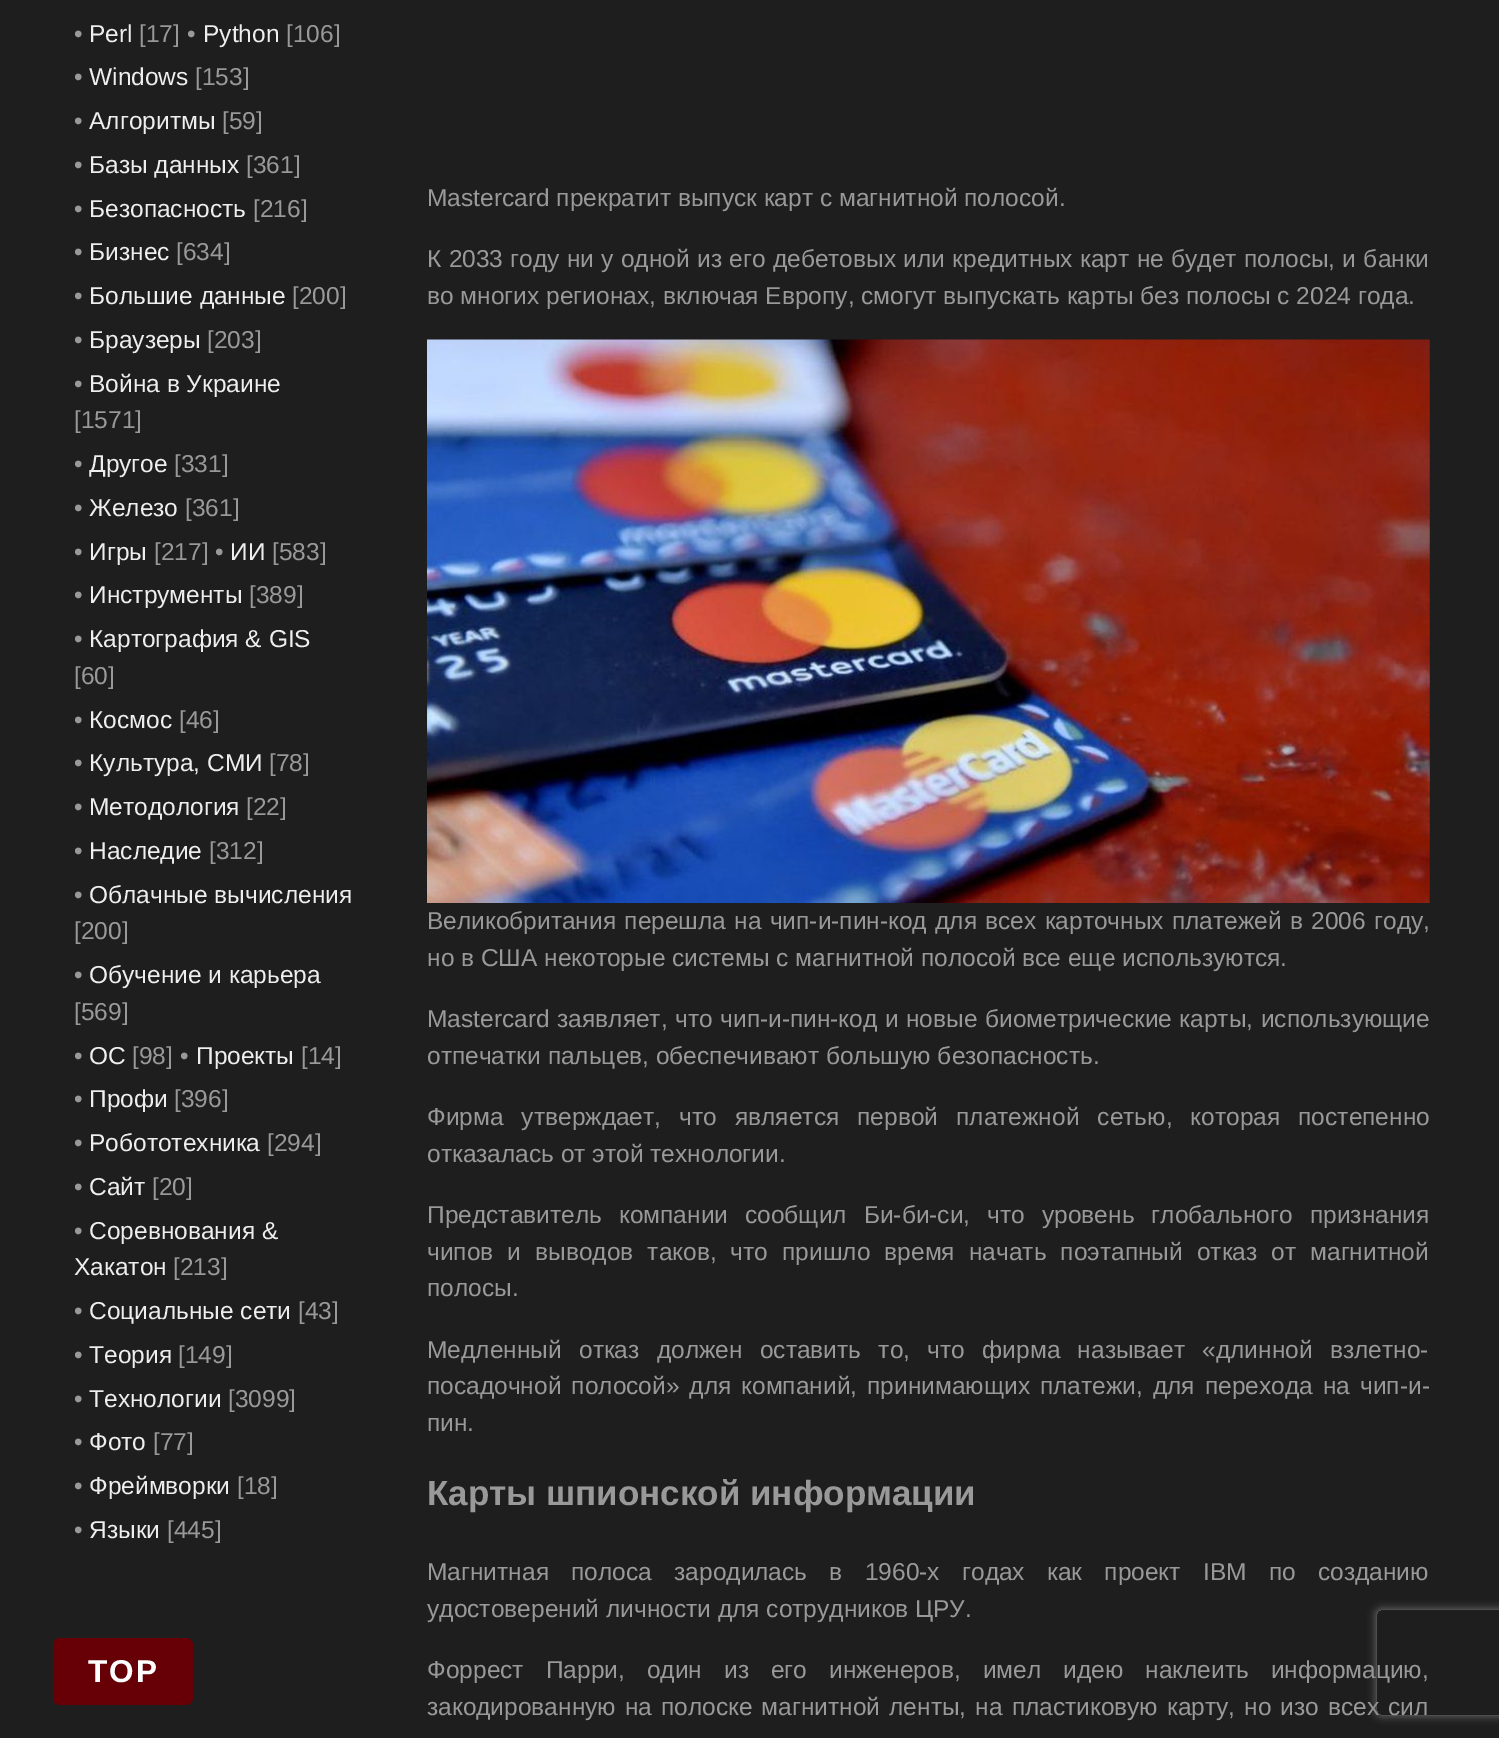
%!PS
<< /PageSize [1499 1738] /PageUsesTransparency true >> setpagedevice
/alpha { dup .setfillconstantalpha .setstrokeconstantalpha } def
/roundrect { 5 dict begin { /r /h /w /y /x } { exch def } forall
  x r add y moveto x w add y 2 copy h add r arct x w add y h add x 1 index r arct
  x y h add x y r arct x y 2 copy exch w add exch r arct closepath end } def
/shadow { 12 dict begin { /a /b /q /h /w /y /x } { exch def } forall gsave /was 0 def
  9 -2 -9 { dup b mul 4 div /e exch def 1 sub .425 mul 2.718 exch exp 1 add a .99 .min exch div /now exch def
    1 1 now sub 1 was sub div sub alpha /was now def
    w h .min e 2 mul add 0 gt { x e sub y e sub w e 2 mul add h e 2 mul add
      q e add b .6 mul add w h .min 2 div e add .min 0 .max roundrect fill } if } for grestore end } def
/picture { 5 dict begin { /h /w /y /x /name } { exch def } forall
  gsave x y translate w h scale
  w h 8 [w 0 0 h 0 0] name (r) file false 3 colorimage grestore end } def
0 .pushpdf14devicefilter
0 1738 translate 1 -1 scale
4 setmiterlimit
0.118 setgray
0 0 1499 1738 rectfill
/LiberationSans-Regular [24.5 0 0 -24.5 0 0] selectfont
0.6 setgray
74 42 moveto (•) show
0.933 setgray
89 42 moveto (Perl) show
0.6 setgray
139 42 moveto ([17] •) show
0.933 setgray
203 42 moveto (Python) show
0.6 setgray
286 42 moveto ([106]) show
74 85 moveto (•) show
0.933 setgray
89 85 moveto (Windows) show
0.6 setgray
195 85 moveto ([153]) show
74 129 moveto (•) show
0.933 setgray
89 129 moveto (Алгоритмы) show
0.6 setgray
222 129 moveto ([59]) show
74 173 moveto (•) show
0.933 setgray
89 173 moveto (Базы данных) show
0.6 setgray
246 173 moveto ([361]) show
74 217 moveto (•) show
0.933 setgray
89 217 moveto (Безопасность) show
0.6 setgray
253 217 moveto ([216]) show
74 260 moveto (•) show
0.933 setgray
89 260 moveto (Бизнес) show
0.6 setgray
176 260 moveto ([634]) show
74 304 moveto (•) show
0.933 setgray
89 304 moveto (Большие данные) show
0.6 setgray
292 304 moveto ([200]) show
74 348 moveto (•) show
0.933 setgray
89 348 moveto (Браузеры) show
0.6 setgray
207 348 moveto ([203]) show
74 392 moveto (•) show
0.933 setgray
89 392 moveto (Война в Украине) show
0.6 setgray
74 428 moveto ([1571]) show
74 472 moveto (•) show
0.933 setgray
89 472 moveto (Другое) show
0.6 setgray
174 472 moveto ([331]) show
74 516 moveto (•) show
0.933 setgray
89 516 moveto (Железо) show
0.6 setgray
185 516 moveto ([361]) show
74 560 moveto (•) show
0.933 setgray
89 560 moveto (Игры) show
0.6 setgray
154 560 moveto ([217] •) show
0.933 setgray
230 560 moveto (ИИ) show
0.6 setgray
272 560 moveto ([583]) show
74 603 moveto (•) show
0.933 setgray
89 603 moveto (Инструменты) show
0.6 setgray
249 603 moveto ([389]) show
74 647 moveto (•) show
0.933 setgray
89 647 moveto (Картография & GIS) show
0.6 setgray
74 684 moveto ([60]) show
74 728 moveto (•) show
0.933 setgray
89 728 moveto (Космос) show
0.6 setgray
179 728 moveto ([46]) show
74 771 moveto (•) show
0.933 setgray
89 771 moveto (Культура, СМИ) show
0.6 setgray
269 771 moveto ([78]) show
74 815 moveto (•) show
0.933 setgray
89 815 moveto (Методология) show
0.6 setgray
246 815 moveto ([22]) show
74 859 moveto (•) show
0.933 setgray
89 859 moveto (Наследие) show
0.6 setgray
209 859 moveto ([312]) show
74 903 moveto (•) show
0.933 setgray
89 903 moveto (Облачные вычисления) show
0.6 setgray
74 939 moveto ([200]) show
74 983 moveto (•) show
0.933 setgray
89 983 moveto (Обучение и карьера) show
0.6 setgray
74 1020 moveto ([569]) show
74 1064 moveto (•) show
0.933 setgray
89 1064 moveto (ОС) show
0.6 setgray
132 1064 moveto ([98] •) show
0.933 setgray
196 1064 moveto (Проекты) show
0.6 setgray
301 1064 moveto ([14]) show
74 1107 moveto (•) show
0.933 setgray
89 1107 moveto (Профи) show
0.6 setgray
174 1107 moveto ([396]) show
74 1151 moveto (•) show
0.933 setgray
89 1151 moveto (Робототехника) show
0.6 setgray
267 1151 moveto ([294]) show
74 1195 moveto (•) show
0.933 setgray
89 1195 moveto (Сайт) show
0.6 setgray
152 1195 moveto ([20]) show
74 1239 moveto (•) show
0.933 setgray
89 1239 moveto (Соревнования &) show
74 1275 moveto (Хакатон) show
0.6 setgray
173 1275 moveto ([213]) show
74 1319 moveto (•) show
0.933 setgray
89 1319 moveto (Социальные сети) show
0.6 setgray
298 1319 moveto ([43]) show
74 1363 moveto (•) show
0.933 setgray
89 1363 moveto (Теория) show
0.6 setgray
178 1363 moveto ([149]) show
74 1407 moveto (•) show
0.933 setgray
89 1407 moveto (Технологии) show
0.6 setgray
228 1407 moveto ([3099]) show
74 1450 moveto (•) show
0.933 setgray
89 1450 moveto (Фото) show
0.6 setgray
153 1450 moveto ([77]) show
74 1494 moveto (•) show
0.933 setgray
89 1494 moveto (Фреймворки) show
0.6 setgray
237 1494 moveto ([18]) show
74 1538 moveto (•) show
0.933 setgray
89 1538 moveto (Языки) show
0.6 setgray
167 1538 moveto ([445]) show
427 206 moveto (Mastercard прекратит выпуск карт с магнитной полосой.) show
427 267 moveto 0.5 0 32 (К 2033 году ни у одной из его дебетовых или кредитных карт не будет полосы, и банки) widthshow
427 304 moveto (во многих регионах, включая Европу, смогут выпускать карты без полосы с 2024 года.) show
(img1.rgb) 427 339 1003 564 picture
427 929 moveto 1.5 0 32 (Великобритания перешла на чип-и-пин-код для всех карточных платежей в 2006 году,) widthshow
427 966 moveto (но в США некоторые системы с магнитной полосой все еще используются.) show
427 1027 moveto 0.75 0 32 (Mastercard заявляет, что чип-и-пин-код и новые биометрические карты, использующие) widthshow
427 1064 moveto (отпечатки пальцев, обеспечивают большую безопасность.) show
427 1125 moveto 11.25 0 32 (Фирма утверждает, что является первой платежной сетью, которая постепенно) widthshow
427 1162 moveto (отказалась от этой технологии.) show
427 1223 moveto 10.25 0 32 (Представитель компании сообщил Би-би-си, что уровень глобального признания) widthshow
427 1260 moveto 7.25 0 32 (чипов и выводов таков, что пришло время начать поэтапный отказ от магнитной) widthshow
427 1296 moveto (полосы.) show
427 1358 moveto 10.5 0 32 (Медленный отказ должен оставить то, что фирма называет «длинной взлетно-) widthshow
427 1394 moveto 3.25 0 32 (посадочной полосой» для компаний, принимающих платежи, для перехода на чип-и-) widthshow
427 1431 moveto (пин.) show
/LiberationSans-Bold [35 0 0 -35 0 0] selectfont
427 1505 moveto (Карты шпионской информации) show
/LiberationSans-Regular [24.5 0 0 -24.5 0 0] selectfont
427 1580 moveto 15.5 0 32 (Магнитная полоса зародилась в 1960-х годах как проект IBM по созданию) widthshow
427 1617 moveto (удостоверений личности для сотрудников ЦРУ.) show
427 1678 moveto 15.25 0 32 (Форрест Парри, один из его инженеров, имел идею наклеить информацию,) widthshow
427 1715 moveto 2.25 0 32 (закодированную на полоске магнитной ленты, на пластиковую карту, но изо всех сил) widthshow
gsave
newpath 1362 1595 moveto 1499 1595 lineto 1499 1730 lineto 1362 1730 lineto closepath 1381 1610 moveto 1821 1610 lineto 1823 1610 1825 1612 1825 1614 curveto 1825 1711 lineto 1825 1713 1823 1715 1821 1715 curveto 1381 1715 lineto 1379 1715 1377 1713 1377 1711 curveto 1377 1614 lineto 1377 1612 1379 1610 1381 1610 curveto closepath eoclip newpath
0.502 setgray
1377 1610 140 105 4 4.5 1 shadow
grestore
0.4 0 0.024 setrgbcolor
53 1638 140 67 7 roundrect fill
/LiberationSans-Bold [31.5 0 0 -31.5 0 0] selectfont
1 setgray
88 1682 moveto 2 0 (TOP) ashow
.poppdf14devicefilter showpage
